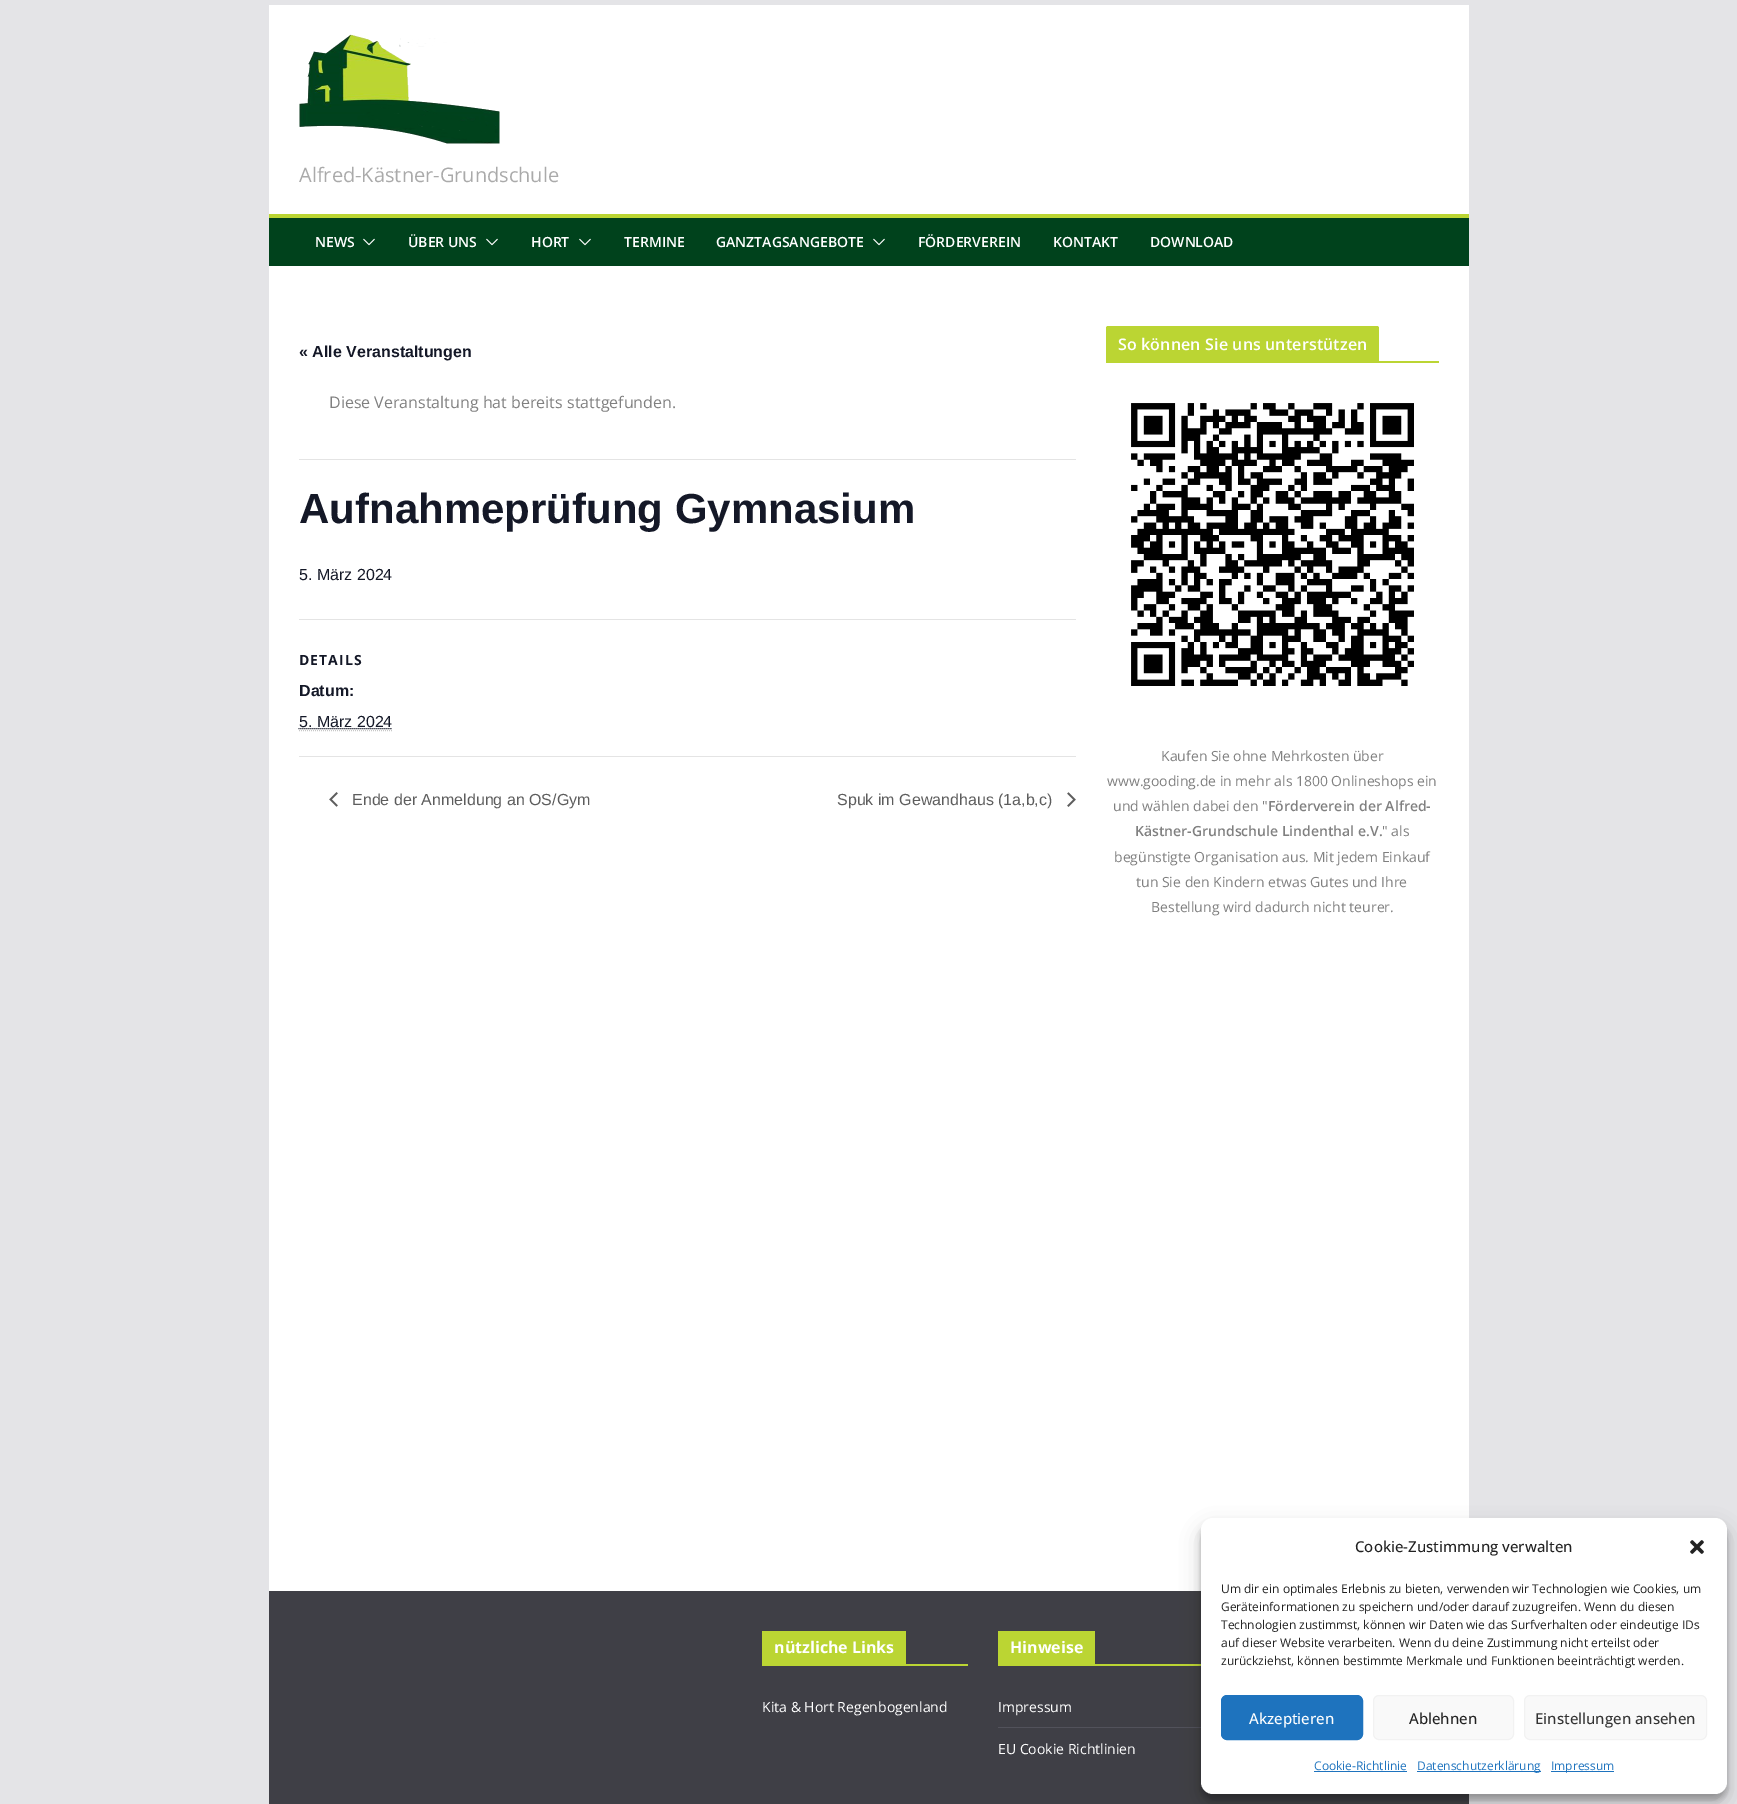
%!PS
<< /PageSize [1737 1804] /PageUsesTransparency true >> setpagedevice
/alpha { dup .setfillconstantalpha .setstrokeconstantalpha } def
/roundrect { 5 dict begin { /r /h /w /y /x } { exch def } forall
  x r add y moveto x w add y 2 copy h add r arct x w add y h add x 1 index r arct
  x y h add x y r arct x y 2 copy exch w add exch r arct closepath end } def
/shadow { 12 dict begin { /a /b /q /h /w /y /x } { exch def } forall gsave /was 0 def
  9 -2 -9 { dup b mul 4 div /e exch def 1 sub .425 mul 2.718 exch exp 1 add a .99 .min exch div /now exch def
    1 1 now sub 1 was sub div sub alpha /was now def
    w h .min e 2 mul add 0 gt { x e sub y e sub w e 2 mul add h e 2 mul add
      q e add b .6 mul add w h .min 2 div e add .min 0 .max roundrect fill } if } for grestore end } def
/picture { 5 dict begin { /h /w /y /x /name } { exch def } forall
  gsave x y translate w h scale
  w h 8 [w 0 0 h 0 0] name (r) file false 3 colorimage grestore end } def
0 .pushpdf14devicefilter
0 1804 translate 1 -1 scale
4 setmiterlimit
0.894 0.894 0.906 setrgbcolor
0 0 1737 1804 rectfill
1 setgray
269 5 1200 209 rectfill
(img1.rgb) 299 34 201 110 picture
/OpenSans-Regular [20 0 0 -20 0 0] selectfont
0.667 setgray
299 182 moveto (Alfred-Kästner-Grundschule) show
0 0.259 0.11 setrgbcolor
269 218 1200 48 rectfill
0.733 0.835 0.2 setrgbcolor
269 214 1200 4 rectfill
/OpenSans-SemiBold [14 0 0 -14 0 0] selectfont
1 setgray
315 247 moveto (NEWS) show
(img2.rgb) 363 238 12 8 picture
408 247 moveto (ÜBER UNS) show
(img2.rgb) 486 238 12 8 picture
531 247 moveto (HORT) show
(img2.rgb) 579 238 12 8 picture
624 247 moveto (TERMINE) show
716 247 moveto (GANZTAGSANGEBOTE) show
(img2.rgb) 873 238 12 8 picture
918 247 moveto (FÖRDERVEREIN) show
1053 247 moveto (KONTAKT) show
1150 247 moveto (DOWNLOAD) show
269 266 1200 1325 rectfill
/LiberationSans-Bold [16 0 0 -16 0 0] selectfont
0.078 0.094 0.153 setrgbcolor
299 357 moveto (« Alle Veranstaltungen) show
0.894 setgray
299 459 777 1 rectfill
/OpenSans-Regular [16 0 0 -16 0 0] selectfont
0.502 setgray
329 408 moveto (Diese Veranstaltung hat bereits stattgefunden.) show
/LiberationSans-Bold [42 0 0 -42 0 0] selectfont
0.078 0.094 0.153 setrgbcolor
299 523 moveto (Aufnahmeprüfung Gymnasium) show
/LiberationSans-Regular [16 0 0 -16 0 0] selectfont
299 580 moveto (5. März 2024) show
0.894 setgray
299 619 777 1 rectfill
/OpenSans-Bold [14 0 0 -14 0 0] selectfont
0.078 0.094 0.153 setrgbcolor
299 665 moveto 1 0 (DETAILS) ashow
/LiberationSans-Bold [16 0 0 -16 0 0] selectfont
299 696 moveto (Datum:) show
/LiberationSans-Regular [16 0 0 -16 0 0] selectfont
299 727 moveto (5. März 2024) show
0.78 setgray
[1 1] 0 setdash
newpath 299 730.5 moveto 392 730.5 lineto stroke
0.078 0.094 0.153 setrgbcolor
newpath 298.5 728.5 moveto 392 728.5 lineto stroke
0.894 setgray
299 756 777 1 rectfill
(img3.rgb) 329 792 9 15 picture
0.365 setgray
352 805 moveto (Ende der Anmeldung an OS/Gym) show
837 805 moveto (Spuk im Gewandhaus \(1a,b,c\)) show
(img4.rgb) 1067 792 9 15 picture
0.733 0.835 0.2 setrgbcolor
1106 361 333 2 rectfill
newpath 1108 326 moveto 1377 326 lineto 1378 326 1379 327 1379 328 curveto 1379 361 lineto 1106 361 lineto 1106 328 lineto 1106 327 1107 326 1108 326 curveto closepath fill
/OpenSans-SemiBold [16 0 0 -16 0 0] selectfont
1 setgray
1118 350 moveto 0.15 0 (So können Sie uns unterstützen) ashow
(img5.rgb) 1131 403 283 283 picture
/OpenSans-Regular [14 0 0 -14 0 0] selectfont
0.502 setgray
1161 761 moveto (Kaufen Sie ohne Mehrkosten über) show
1107 786 moveto (www.gooding.de in mehr als 1800 Onlineshops ein) show
1113 811 moveto (und wählen dabei den ") show
/OpenSans-SemiBold [14 0 0 -14 0 0] selectfont
1268 811 moveto (Förderverein der Alfred-) show
1135 836 moveto (Kästner-Grundschule Lindenthal e.V.) show
/OpenSans-Regular [14 0 0 -14 0 0] selectfont
1382 836 moveto (" als) show
1114 862 moveto (begünstigte Organisation aus. Mit jedem Einkauf) show
1136 887 moveto (tun Sie den Kindern etwas Gutes und Ihre) show
1151 912 moveto (Bestellung wird dadurch nicht teurer.) show
0.247 0.247 0.275 setrgbcolor
269 1591 1200 213 rectfill
0.733 0.835 0.2 setrgbcolor
762 1664 206 2 rectfill
762 1631 144 33 rectfill
/OpenSans-Bold [16 0 0 -16 0 0] selectfont
1 setgray
774 1653 moveto (nützliche Links) show
/OpenSans-Regular [14 0 0 -14 0 0] selectfont
762 1712 moveto (Kita & Hort Regenbogenland) show
0.733 0.835 0.2 setrgbcolor
998 1664 205 2 rectfill
998 1631 97 33 rectfill
/OpenSans-Bold [16 0 0 -16 0 0] selectfont
1 setgray
1010 1653 moveto (Hinweise) show
0.322 0.322 0.357 setrgbcolor
998 1727 205 1 rectfill
/OpenSans-Regular [14 0 0 -14 0 0] selectfont
1 setgray
998 1712 moveto (Impressum) show
998 1754 moveto (EU Cookie Richtlinien) show
0 setgray
1201 1524 526 276 12 3 0.23 shadow
1201 1528 526 276 12 10 0.19 shadow
1 setgray
1201 1518 526 276 12 roundrect fill
/OpenSans-Medium [15 0 0 -15 0 0] selectfont
0.133 setgray
1355 1552 moveto (Cookie-Zustimmung verwalten) show
(img6.rgb) 1690 1540 14 14 picture
/OpenSans-Regular [12 0 0 -12 0 0] selectfont
1221 1593 moveto (Um dir ein optimales Erlebnis zu bieten, verwenden wir Technologien wie Cookies, um) show
1221 1611 moveto (Geräteinformationen zu speichern und/oder darauf zuzugreifen. Wenn du diesen) show
1221 1629 moveto (Technologien zustimmst, können wir Daten wie das Surfverhalten oder eindeutige IDs) show
1221 1647 moveto (auf dieser Website verarbeiten. Wenn du deine Zustimmung nicht erteilst oder) show
1221 1665 moveto (zurückziehst, können bestimmte Merkmale und Funktionen beeinträchtigt werden.) show
0.118 0.451 0.745 setrgbcolor
1221.5 1695.5 141 44 5.5 roundrect gsave fill grestore
[] 0 setdash
stroke
/OpenSans-Medium [15 0 0 -15 0 0] selectfont
1 setgray
1249 1724 moveto (Akzeptieren) show
0.976 setgray
1373.5 1695.5 140 44 5.5 roundrect gsave fill grestore
0.949 setgray
stroke
0.133 setgray
1409 1724 moveto (Ablehnen) show
0.976 setgray
1524.5 1695.5 182 44 5.5 roundrect gsave fill grestore
0.949 setgray
stroke
0.2 setgray
1535 1724 moveto (Einstellungen ansehen) show
/OpenSans-Regular [12 0 0 -12 0 0] selectfont
0.118 0.451 0.745 setrgbcolor
1314 1770 moveto (Cookie-Richtlinie) show
1314 1771 93 1 rectfill
1417 1771 124 1 rectfill
1417 1770 moveto (Datenschutzerklärung) show
1551 1771 63 1 rectfill
1551 1770 moveto (Impressum) show
.poppdf14devicefilter showpage
